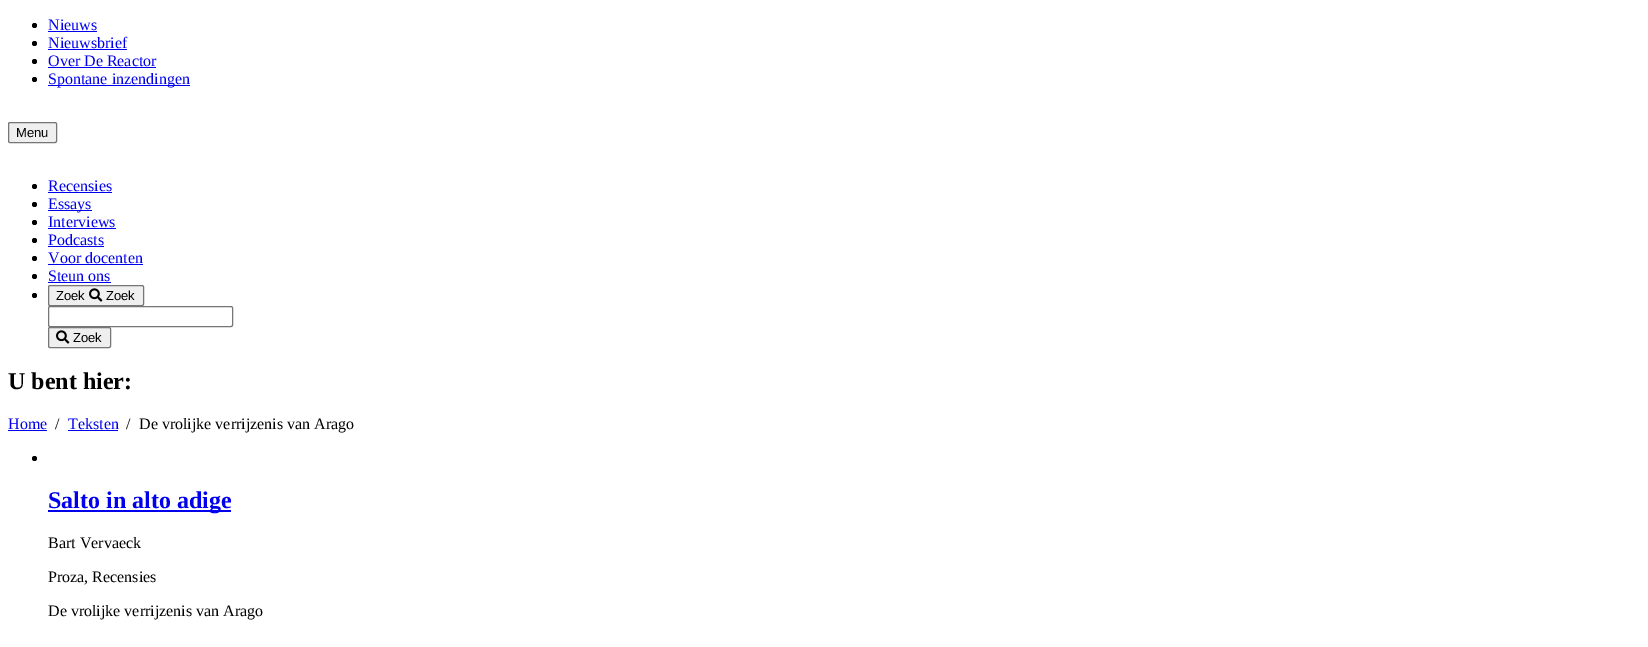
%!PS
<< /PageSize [1648 647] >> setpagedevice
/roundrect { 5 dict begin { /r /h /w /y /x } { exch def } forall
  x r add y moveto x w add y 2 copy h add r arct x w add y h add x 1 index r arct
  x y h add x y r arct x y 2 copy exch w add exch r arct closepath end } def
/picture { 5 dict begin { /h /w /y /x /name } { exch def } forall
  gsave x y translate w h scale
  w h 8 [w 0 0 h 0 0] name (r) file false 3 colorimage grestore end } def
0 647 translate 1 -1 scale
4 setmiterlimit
1 setgray
0 0 1648 647 rectfill
0 setgray
newpath 34.5 25.5 2.5 0 360 arc closepath fill
/LiberationSerif-Regular [16 0 0 -16 0 0] selectfont
0 0 0.933 setrgbcolor
48 30 moveto (Nieuws) show
48 31 49 1 rectfill
0 setgray
newpath 34.5 43.5 2.5 0 360 arc closepath fill
0 0 0.933 setrgbcolor
48 48 moveto (Nieuwsbrief) show
48 49 79 1 rectfill
0 setgray
newpath 34.5 61.5 2.5 0 360 arc closepath fill
0 0 0.933 setrgbcolor
48 66 moveto (Over De Reactor) show
48 67 108 1 rectfill
0 setgray
newpath 34.5 79.5 2.5 0 360 arc closepath fill
0 0 0.933 setrgbcolor
48 85 142 1 rectfill
48 84 moveto (Spontane inzendingen) show
0.937 setgray
8.5 122.5 48 20 1.5 roundrect gsave fill grestore
0.463 setgray
stroke
/LiberationSans-Regular [13 0 0 -13 0 0] selectfont
0 setgray
16 137 moveto (Menu) show
newpath 34.5 186.5 2.5 0 360 arc closepath fill
/LiberationSerif-Regular [16 0 0 -16 0 0] selectfont
0 0 0.933 setrgbcolor
48 191 moveto (Recensies) show
48 192 64 1 rectfill
0 setgray
newpath 34.5 204.5 2.5 0 360 arc closepath fill
0 0 0.933 setrgbcolor
48 210 44 1 rectfill
48 209 moveto (Essays) show
0 setgray
newpath 34.5 222.5 2.5 0 360 arc closepath fill
0 0 0.933 setrgbcolor
48 227 moveto (Interviews) show
48 228 68 1 rectfill
0 setgray
newpath 34.5 240.5 2.5 0 360 arc closepath fill
0 0 0.933 setrgbcolor
48 245 moveto (Podcasts) show
48 246 56 1 rectfill
0 setgray
newpath 34.5 258.5 2.5 0 360 arc closepath fill
0 0 0.933 setrgbcolor
48 263 moveto (Voor docenten) show
48 264 95 1 rectfill
0 setgray
newpath 34.5 276.5 2.5 0 360 arc closepath fill
0 0 0.933 setrgbcolor
48 281 moveto (Steun ons) show
48 282 63 1 rectfill
0 setgray
newpath 34.5 295.5 2.5 0 360 arc closepath fill
0.937 setgray
48.5 285.5 95 20 1.5 roundrect gsave fill grestore
0.463 setgray
stroke
/LiberationSans-Regular [13 0 0 -13 0 0] selectfont
0 setgray
56 300 moveto (Zoek) show
(img1.rgb) 89 288 14 14 picture
106 300 moveto (Zoek) show
0.463 setgray
48.5 306.5 184 20 1.5 roundrect stroke
0.937 setgray
48.5 327.5 62 20 1.5 roundrect gsave fill grestore
0.463 setgray
stroke
(img1.rgb) 56 330 14 14 picture
0 setgray
73 342 moveto (Zoek) show
/LiberationSerif-Bold [24 0 0 -24 0 0] selectfont
8 389 moveto (U bent hier:) show
/LiberationSerif-Regular [16 0 0 -16 0 0] selectfont
0 0 0.933 setrgbcolor
8 429 moveto (Home) show
8 430 39 1 rectfill
0 setgray
55 429 moveto (/) show
0 0 0.933 setrgbcolor
68 429 moveto (Teksten) show
68 430 50 1 rectfill
0 setgray
126 429 moveto (/) show
139 429 moveto (De vrolijke verrijzenis van Arago) show
newpath 34.5 458.5 2.5 0 360 arc closepath fill
0 0 0.933 setrgbcolor
48 510 183 2 rectfill
/LiberationSerif-Bold [24 0 0 -24 0 0] selectfont
48 508 moveto (Salto in alto adige) show
/LiberationSerif-Regular [16 0 0 -16 0 0] selectfont
0 setgray
48 548 moveto (Bart Vervaeck) show
48 582 moveto (Proza, Recensies) show
48 616 moveto (De vrolijke verrijzenis van Arago) show
showpage
